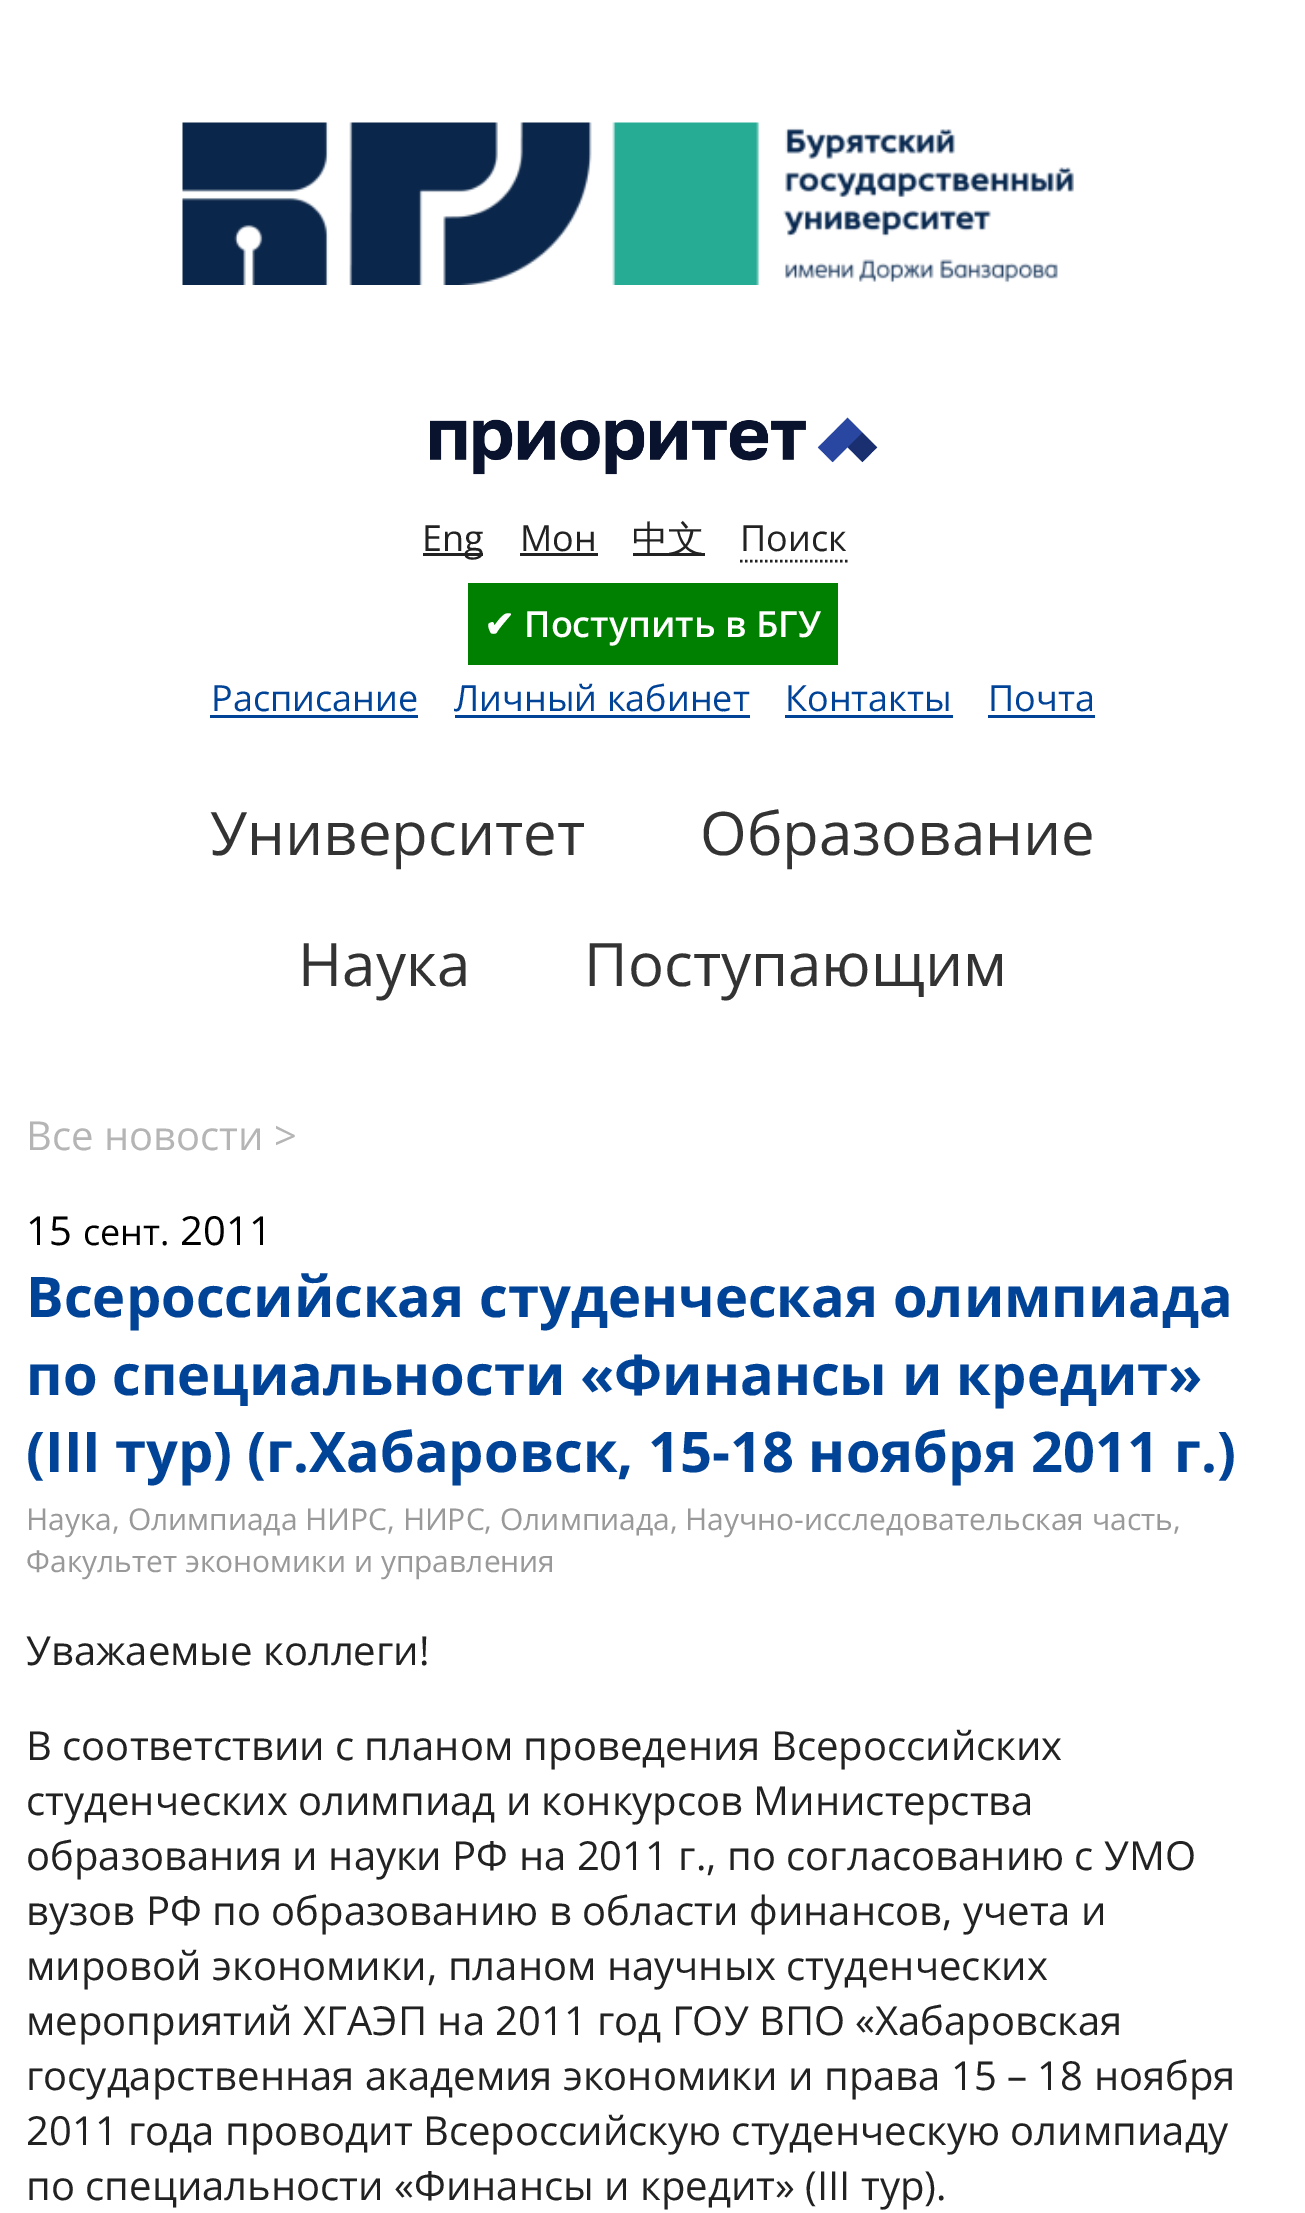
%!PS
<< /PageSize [1305 2213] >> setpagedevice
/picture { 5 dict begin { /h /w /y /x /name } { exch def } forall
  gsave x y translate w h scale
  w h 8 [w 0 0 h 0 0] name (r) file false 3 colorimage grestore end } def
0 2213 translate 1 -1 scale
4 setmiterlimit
1 setgray
0 0 1305 2213 rectfill
(img1.rgb) 182 122 892 163 picture
(img2.rgb) 430 417 448 58 picture
0.133 setgray
423 553 60 3 rectfill
/OpenSans-Regular [36 0 0 -36 0 0] selectfont
422 551 moveto (Eng) show
520 551 moveto (Мон) show
520 553 78 3 rectfill
633 553 72 3 rectfill
/WenQuanYiZenHei-Medium [36 0 0 -36 0 0] selectfont
632 551 moveto (中文) show
/OpenSans-Regular [36 0 0 -36 0 0] selectfont
740 551 moveto (Поиск) show
2.5 setlinewidth
[2.5 2.5] 0 setdash
newpath 740 561 moveto 847.5 561 lineto stroke
0 0.502 0 setrgbcolor
468 583 370 82 rectfill
/DejaVuSans-Bold [36 0 0 -36 0 0] selectfont
1 setgray
484 637 moveto (✔) show
/OpenSans-SemiBold [36 0 0 -36 0 0] selectfont
524 637 moveto (Поступить в БГУ) show
/OpenSans-Regular [36 0 0 -36 0 0] selectfont
0.004 0.263 0.592 setrgbcolor
211 711 moveto (Расписание) show
210 715 208 3 rectfill
454 711 moveto (Личный кабинет) show
455 715 295 3 rectfill
785 711 moveto (Контакты) show
785 715 168 3 rectfill
988 711 moveto (Почта) show
988 715 107 3 rectfill
/OpenSans-Regular [60 0 0 -60 0 0] selectfont
0.2 setgray
210 855 moveto (Университет) show
700 855 moveto (Образование) show
298 986 moveto (Наука) show
584 986 moveto (Поступающим) show
/OpenSans-Regular [40 0 0 -40 0 0] selectfont
0.71 setgray
26 1150 moveto (Все новости >) show
0 setgray
26 1245 moveto (15) show
/OpenSans-Regular [36 0 0 -36 0 0] selectfont
83 1245 moveto (сент.) show
/OpenSans-Regular [40 0 0 -40 0 0] selectfont
180 1245 moveto (2011) show
/OpenSans-Bold [56 0 0 -56 0 0] selectfont
0.004 0.263 0.592 setrgbcolor
26 1317 moveto (Всероссийская студенческая олимпиада) show
26 1395 moveto (по специальности «Финансы и кредит») show
26 1472 moveto (\(III тур\) \(г.Хабаровск, 15-18 ноября 2011 г.\)) show
/OpenSans-Regular [30 0 0 -30 0 0] selectfont
0.6 setgray
26 1530 moveto (Наука, Олимпиада НИРС, НИРС, Олимпиада, Научно-исследовательская часть,) show
26 1572 moveto (Факультет экономики и управления) show
/OpenSans-Regular [40 0 0 -40 0 0] selectfont
0.133 setgray
26 1665 moveto (Уважаемые коллеги!) show
26 1760 moveto (В соответствии с планом проведения Всероссийских) show
26 1815 moveto (студенческих олимпиад и конкурсов Министерства) show
26 1870 moveto (образования и науки РФ на 2011 г., по согласованию с УМО) show
26 1925 moveto (вузов РФ по образованию в области финансов, учета и) show
26 1980 moveto (мировой экономики, планом научных студенческих) show
26 2035 moveto (мероприятий ХГАЭП на 2011 год ГОУ ВПО «Хабаровская) show
26 2090 moveto (государственная академия экономики и права 15 – 18 ноября) show
26 2145 moveto (2011 года проводит Всероссийскую студенческую олимпиаду) show
26 2200 moveto (по специальности «Финансы и кредит» \(III тур\).) show
showpage
